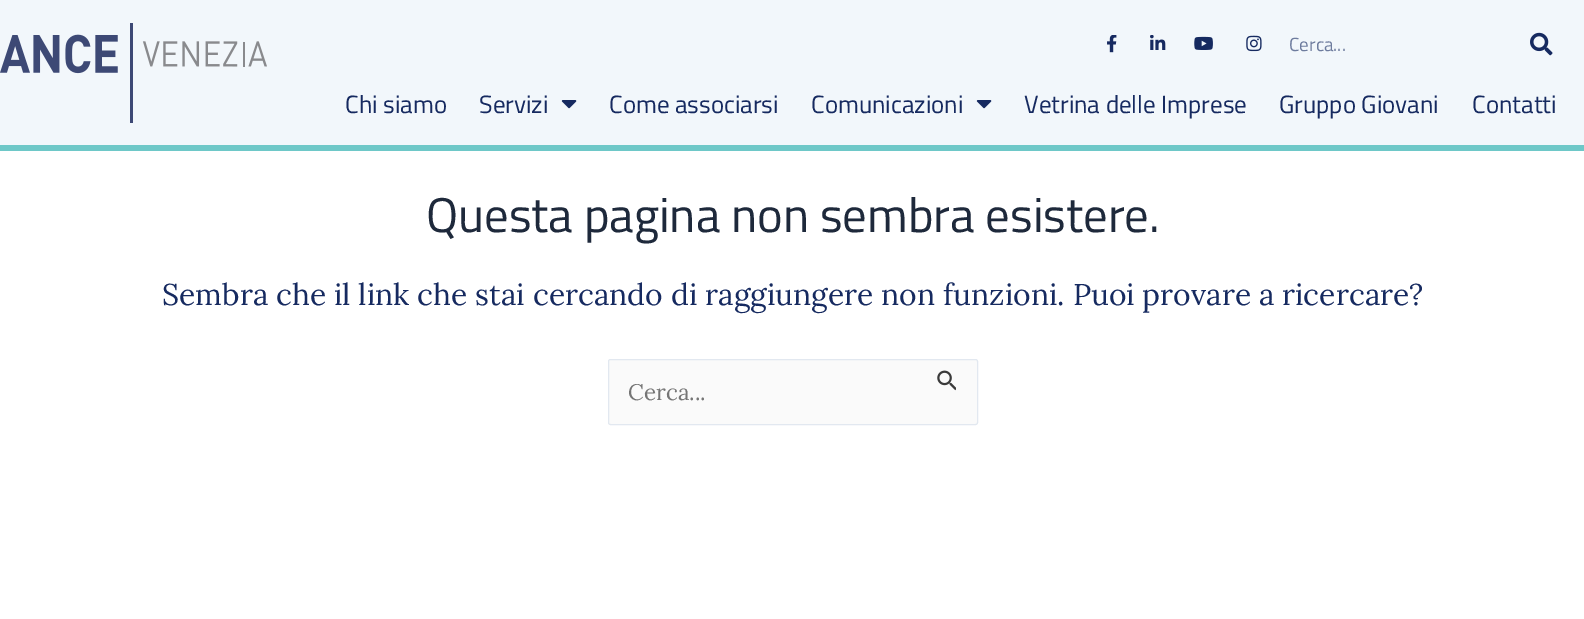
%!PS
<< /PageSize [1584 619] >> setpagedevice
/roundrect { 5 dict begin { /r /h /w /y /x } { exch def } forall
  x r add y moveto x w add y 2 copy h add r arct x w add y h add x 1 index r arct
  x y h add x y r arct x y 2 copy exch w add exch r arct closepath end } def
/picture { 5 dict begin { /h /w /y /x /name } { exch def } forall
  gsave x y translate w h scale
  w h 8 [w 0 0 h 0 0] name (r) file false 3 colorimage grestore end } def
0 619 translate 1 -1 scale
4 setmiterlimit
1 setgray
0 0 1584 619 rectfill
0.949 0.969 0.984 setrgbcolor
0 0 1584 145 rectfill
0.431 0.784 0.784 setrgbcolor
0 145 1584 6 rectfill
(img1.rgb) 0 23 267 100 picture
(img2.rgb) 1107 35 10 18 picture
(img3.rgb) 1150 35 16 15 picture
(img4.rgb) 1194 36 19 14 picture
(img5.rgb) 1246 35 16 17 picture
/TitilliumWeb-Regular [19 0 0 -19 0 0] selectfont
0.431 0.486 0.62 setrgbcolor
1289 51 moveto (Cerca...) show
(img6.rgb) 1530 32 23 24 picture
/TitilliumWeb-Regular [25 0 0 -25 0 0] selectfont
0.086 0.165 0.376 setrgbcolor
345 113 moveto (Chi siamo) show
479 113 moveto (Servizi) show
(img7.rgb) 561 100 16 9 picture
609 113 moveto (Come associarsi) show
811 113 moveto (Comunicazioni) show
(img7.rgb) 976 100 16 9 picture
1024 113 moveto (Vetrina delle Imprese) show
1279 113 moveto (Gruppo Giovani) show
1472 113 moveto (Contatti) show
/TitilliumWeb-Regular [48.75 0 0 -48.75 0 0] selectfont
0.118 0.161 0.231 setrgbcolor
426 232 moveto (Questa pagina non sembra esistere.) show
/Lora-Regular [30 0 0 -30 0 0] selectfont
0.086 0.165 0.376 setrgbcolor
162 305 moveto (Sembra che il link che stai cercando di raggiungere non funzioni. Puoi provare a ricercare?) show
0.98 setgray
608.5 359.5 369 65 2 roundrect gsave fill grestore
0.886 0.91 0.941 setrgbcolor
stroke
/Lora-Regular [22.5 0 0 -22.5 0 0] selectfont
0.459 setgray
628 400 moveto (Cerca...) show
(img8.rgb) 937 370 19 21 picture
showpage
